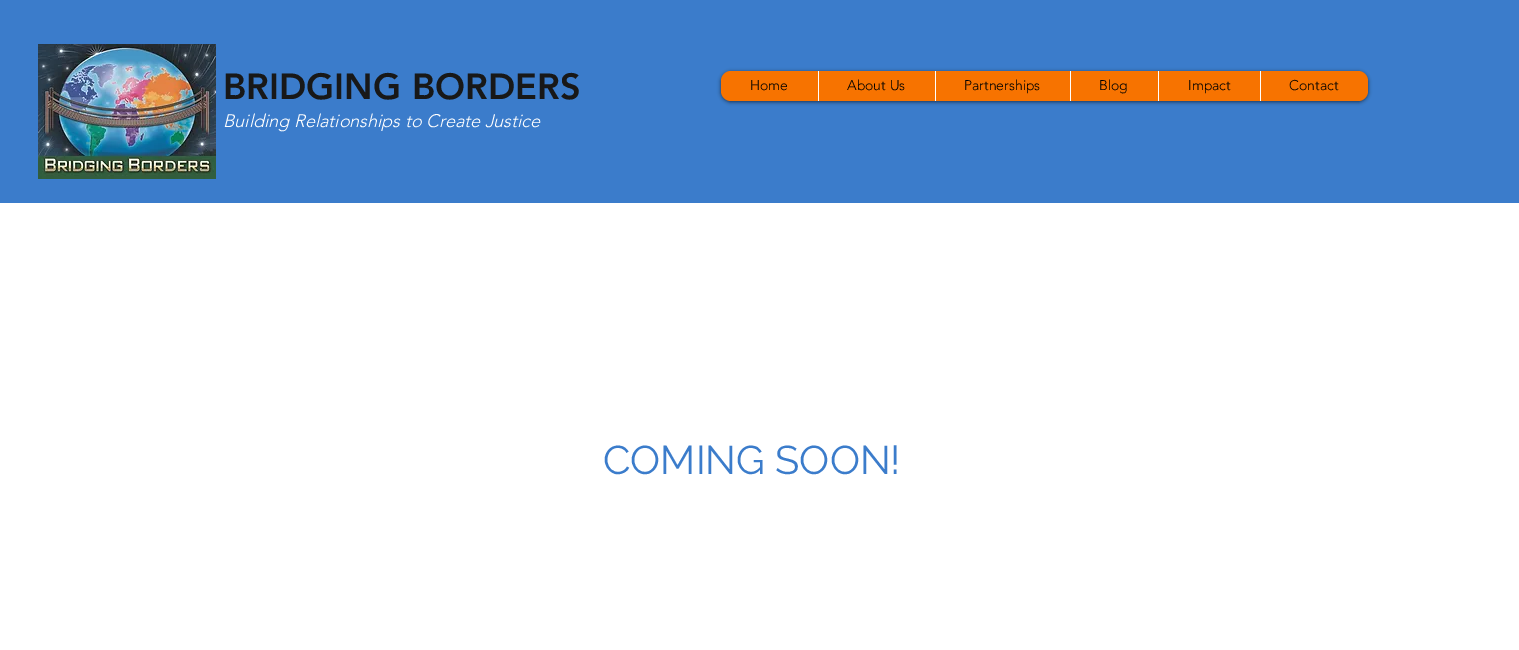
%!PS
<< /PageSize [1519 650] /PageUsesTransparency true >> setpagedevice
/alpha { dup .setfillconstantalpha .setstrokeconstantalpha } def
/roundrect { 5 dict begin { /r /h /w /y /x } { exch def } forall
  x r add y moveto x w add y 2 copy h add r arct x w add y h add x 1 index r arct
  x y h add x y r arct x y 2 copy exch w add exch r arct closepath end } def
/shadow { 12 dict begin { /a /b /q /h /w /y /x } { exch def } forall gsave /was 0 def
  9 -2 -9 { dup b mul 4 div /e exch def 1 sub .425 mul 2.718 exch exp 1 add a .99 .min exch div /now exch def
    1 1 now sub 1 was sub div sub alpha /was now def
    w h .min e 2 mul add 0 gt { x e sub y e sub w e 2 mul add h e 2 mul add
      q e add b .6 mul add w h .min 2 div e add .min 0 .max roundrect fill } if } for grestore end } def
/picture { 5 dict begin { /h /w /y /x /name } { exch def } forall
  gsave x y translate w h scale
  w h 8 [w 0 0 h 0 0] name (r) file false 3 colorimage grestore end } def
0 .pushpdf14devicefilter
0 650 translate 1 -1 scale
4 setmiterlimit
1 setgray
0 0 1519 650 rectfill
0.231 0.486 0.796 setrgbcolor
0 0 1519 203 rectfill
(img1.rgb) 38 44 178 135 picture
/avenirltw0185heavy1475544-Black [36 0 0 -36 0 0] selectfont
0.094 setgray
223 99 moveto (BRIDGING BORDERS) show
/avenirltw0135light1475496-LightItalic [18 0 0 -18 0 0] selectfont
1 setgray
223 127 moveto (Building Relationships to Create Justice) show
0 setgray
721 72 647 30 10 2 0.6 shadow
0.969 0.451 0 setrgbcolor
721 71 647 30 10 roundrect fill
/avenirltw0135light1475496-Light [14 0 0 -14 0 0] selectfont
0 setgray
750 90 moveto (Home) show
1 setgray
818 71 1 30 rectfill
0 setgray
847 90 moveto (About Us) show
1 setgray
935 71 1 30 rectfill
0 setgray
964 90 moveto (Partnerships) show
1 setgray
1070 71 1 30 rectfill
0 setgray
1099 90 moveto (Blog) show
1 setgray
1158 71 1 30 rectfill
0 setgray
1188 90 moveto (Impact) show
1 setgray
1260 71 1 30 rectfill
0 setgray
1289 90 moveto (Contact) show
/Raleway-Regular [40 0 0 -40 0 0] selectfont
0.231 0.486 0.796 setrgbcolor
603 474 moveto (COMING SOON!) show
.poppdf14devicefilter showpage
